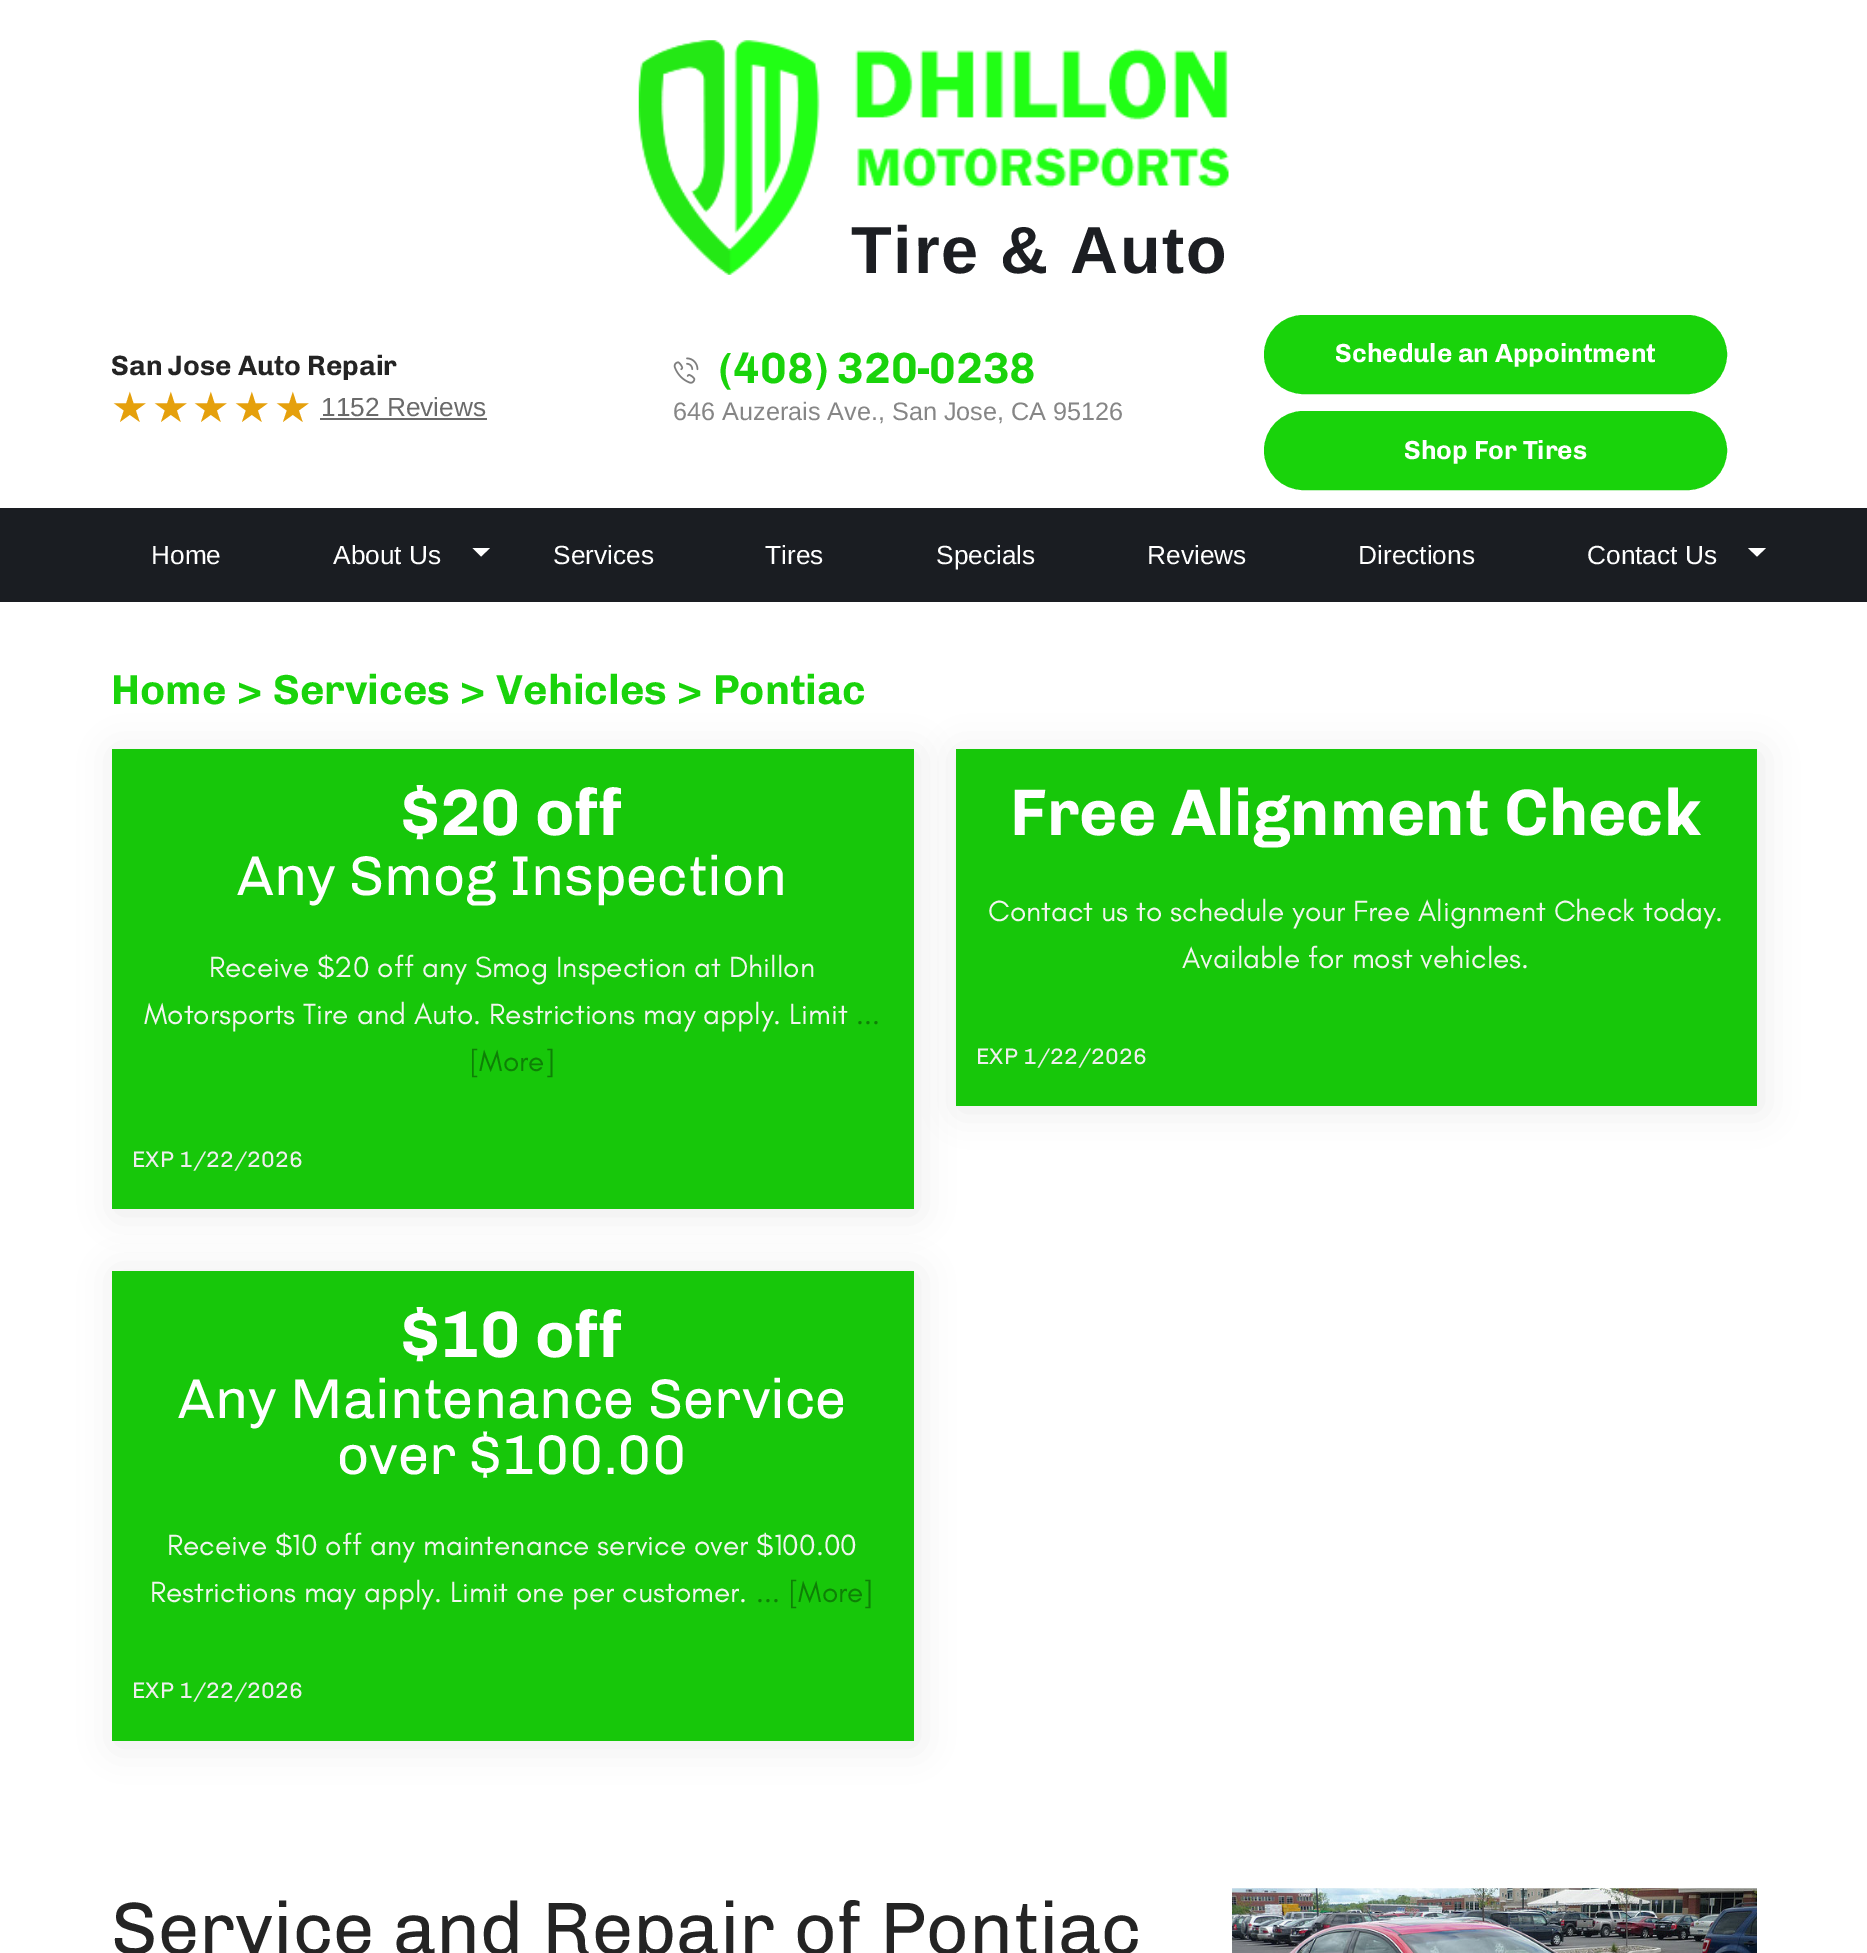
%!PS
<< /PageSize [1867 1953] /PageUsesTransparency true >> setpagedevice
/alpha { dup .setfillconstantalpha .setstrokeconstantalpha } def
/roundrect { 5 dict begin { /r /h /w /y /x } { exch def } forall
  x r add y moveto x w add y 2 copy h add r arct x w add y h add x 1 index r arct
  x y h add x y r arct x y 2 copy exch w add exch r arct closepath end } def
/shadow { 12 dict begin { /a /b /q /h /w /y /x } { exch def } forall gsave /was 0 def
  9 -2 -9 { dup b mul 4 div /e exch def 1 sub .425 mul 2.718 exch exp 1 add a .99 .min exch div /now exch def
    1 1 now sub 1 was sub div sub alpha /was now def
    w h .min e 2 mul add 0 gt { x e sub y e sub w e 2 mul add h e 2 mul add
      q e add b .6 mul add w h .min 2 div e add .min 0 .max roundrect fill } if } for grestore end } def
/picture { 5 dict begin { /h /w /y /x /name } { exch def } forall
  gsave x y translate w h scale
  w h 8 [w 0 0 h 0 0] name (r) file false 3 colorimage grestore end } def
0 .pushpdf14devicefilter
0 1953 translate 1 -1 scale
4 setmiterlimit
1 setgray
0 0 1867 1953 rectfill
(img1.rgb) 638 40 591 235 picture
/LiberationSans-Bold [66.5 0 0 -66.5 0 0] selectfont
0.11 0.118 0.133 setrgbcolor
851 273 moveto 1.75 0 (Tire & Auto) ashow
/Chivo-Bold [28 0 0 -28 0 0] selectfont
0.141 setgray
111 375 moveto (San Jose Auto Repair) show
/DejaVuSans-Regular [42 0 0 -42 0 0] selectfont
0.898 0.627 0.047 setrgbcolor
111 422 moveto 3 0 (★★★★★) ashow
/LiberationSans-Regular [26.25 0 0 -26.25 0 0] selectfont
0.416 setgray
321 416 moveto (1152 Reviews) show
320 418 167 2 rectfill
(img2.rgb) 673 357 26 27 picture
/Chivo-Bold [43.75 0 0 -43.75 0 0] selectfont
0.098 0.827 0.043 setrgbcolor
719 383 moveto (\(408\) 320-0238) show
/LiberationSans-Regular [25.25 0 0 -25.25 0 0] selectfont
0.525 setgray
673 420 moveto (646 Auzerais Ave., San Jose, CA 95126) show
0.098 0.827 0.043 setrgbcolor
1266 317 459 75 37.5 roundrect gsave fill grestore
4 setlinewidth
stroke
/Chivo-Bold [26.25 0 0 -26.25 0 0] selectfont
1 setgray
1335 362 moveto (Schedule an Appointment) show
0.098 0.827 0.043 setrgbcolor
1266 413 459 75 37.5 roundrect gsave fill grestore
stroke
1 setgray
1404 459 moveto (Shop For Tires) show
0.102 0.114 0.133 setrgbcolor
0 508 1867 94 rectfill
/LiberationSans-Regular [26.25 0 0 -26.25 0 0] selectfont
1 setgray
151 564 moveto (Home) show
333 564 moveto (About Us) show
newpath 472.5 548 moveto 490 548 lineto 481 556.5 lineto closepath fill
553 564 moveto (Services) show
765 564 moveto (Tires) show
936 564 moveto (Specials) show
1147 564 moveto (Reviews) show
1358 564 moveto (Directions) show
1587 564 moveto (Contact Us) show
newpath 1748 548 moveto 1766 548 lineto 1757 556.5 lineto closepath fill
/Chivo-Bold [42 0 0 -42 0 0] selectfont
0.098 0.827 0.043 setrgbcolor
111 704 moveto (Home) show
237 704 moveto (>) show
273 704 moveto (Services) show
460 704 moveto (>) show
496 704 moveto (Vehicles) show
677 704 moveto (>) show
713 704 moveto (Pontiac) show
0.471 setgray
116 753 801 460 0 17.5 0.15 shadow
0.09 0.78 0.039 setrgbcolor
112 749 802 460 rectfill
/Chivo-Bold [65.9 0 0 -65.9 0 0] selectfont
1 setgray
401 835 moveto ($20 off) show
/Chivo-Regular [56 0 0 -56 0 0] selectfont
237 895 moveto (Any Smog Inspection) show
/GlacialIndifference-Regular [29.75 0 0 -29.75 0 0] selectfont
0.945 0.961 0.937 setrgbcolor
209 977 moveto (Receive $20 off any Smog Inspection at Dhillon) show
144 1024 moveto (Motorsports Tire and Auto. Restrictions may apply. Limit) show
0.055 0.502 0.024 setrgbcolor
856 1024 moveto (...) show
469 1071 moveto ([More]) show
/Chivo-Regular [22.5 0 0 -22.5 0 0] selectfont
0.933 setgray
132 1167 moveto (EXP 1/22/2026) show
0.471 setgray
959 753 802 357 0 17.5 0.15 shadow
0.09 0.78 0.039 setrgbcolor
956 749 801 357 rectfill
/Chivo-Bold [65.9 0 0 -65.9 0 0] selectfont
1 setgray
1010 835 moveto (Free Alignment Check) show
/GlacialIndifference-Regular [29.75 0 0 -29.75 0 0] selectfont
0.945 0.961 0.937 setrgbcolor
988 921 moveto (Contact us to schedule your Free Alignment Check today.) show
1182 968 moveto (Available for most vehicles.) show
/Chivo-Regular [22.5 0 0 -22.5 0 0] selectfont
0.933 setgray
976 1064 moveto (EXP 1/22/2026) show
0.471 setgray
116 1274 801 471 0 17.5 0.15 shadow
0.09 0.78 0.039 setrgbcolor
112 1271 802 470 rectfill
/Chivo-Bold [65.9 0 0 -65.9 0 0] selectfont
1 setgray
401 1357 moveto ($10 off) show
/Chivo-Regular [56 0 0 -56 0 0] selectfont
178 1418 moveto (Any Maintenance Service) show
337 1474 moveto (over $100.00) show
/GlacialIndifference-Regular [29.75 0 0 -29.75 0 0] selectfont
0.945 0.961 0.937 setrgbcolor
167 1555 moveto (Receive $10 off any maintenance service over $100.00) show
150 1602 moveto (Restrictions may apply. Limit one per customer.) show
0.055 0.502 0.024 setrgbcolor
756 1602 moveto (... [More]) show
/Chivo-Regular [22.5 0 0 -22.5 0 0] selectfont
0.933 setgray
132 1698 moveto (EXP 1/22/2026) show
/Chivo-Regular [74.4 0 0 -74.4 0 0] selectfont
0.141 setgray
111 1954 moveto (Service and Repair of Pontiac) show
(img3.rgb) 1232 1888 525 65 picture
.poppdf14devicefilter showpage
